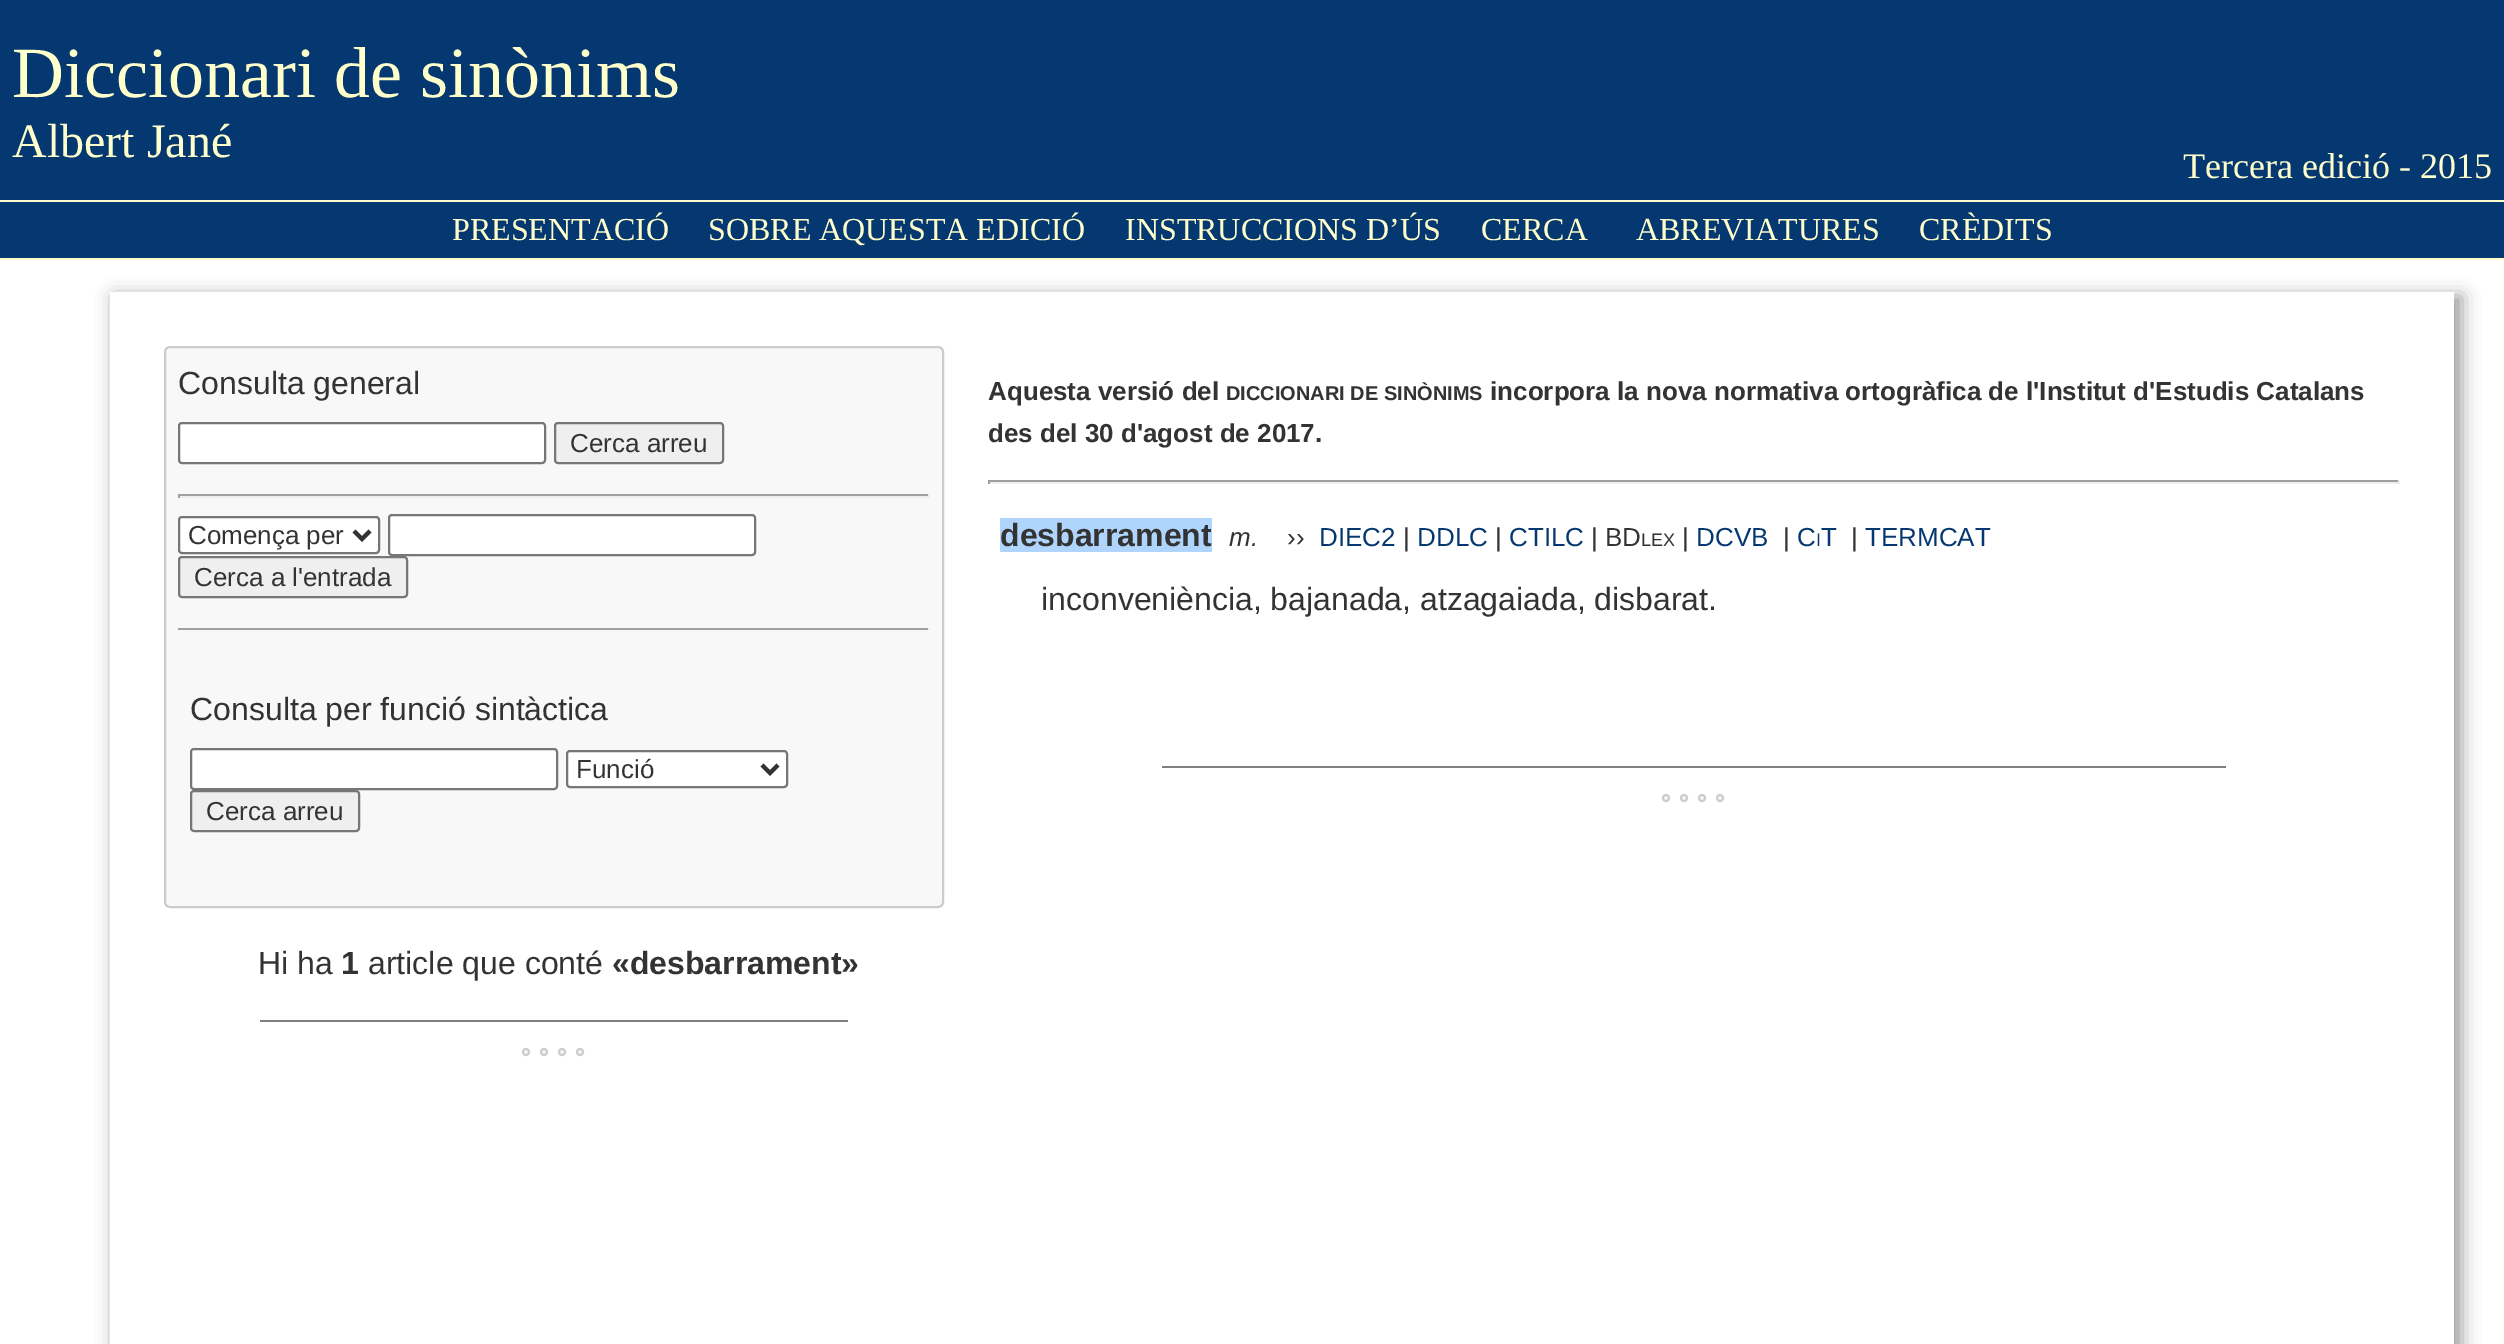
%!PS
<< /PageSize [2504 1344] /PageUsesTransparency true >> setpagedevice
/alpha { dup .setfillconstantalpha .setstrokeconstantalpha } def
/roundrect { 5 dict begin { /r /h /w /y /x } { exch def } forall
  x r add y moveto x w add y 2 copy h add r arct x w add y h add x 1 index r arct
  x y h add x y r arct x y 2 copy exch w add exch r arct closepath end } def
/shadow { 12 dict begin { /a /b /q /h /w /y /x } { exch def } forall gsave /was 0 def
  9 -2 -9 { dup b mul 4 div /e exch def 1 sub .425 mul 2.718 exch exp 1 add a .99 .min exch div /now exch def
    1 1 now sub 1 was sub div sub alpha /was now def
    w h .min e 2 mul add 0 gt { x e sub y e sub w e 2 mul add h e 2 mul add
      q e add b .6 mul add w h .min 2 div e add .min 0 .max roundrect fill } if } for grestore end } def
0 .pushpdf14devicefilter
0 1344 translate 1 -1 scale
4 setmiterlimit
1 setgray
0 0 2504 1344 rectfill
0.02 0.22 0.439 setrgbcolor
0 0 2504 200 rectfill
/LiberationSerif-Regular [72 0 0 -72 0 0] selectfont
1 1 0.8 setrgbcolor
12 97 moveto (Diccionari de sinònims) show
/LiberationSerif-Regular [48 0 0 -48 0 0] selectfont
12 157 moveto (Albert Jané) show
/LiberationSerif-Regular [36 0 0 -36 0 0] selectfont
2183 178 moveto (Tercera edició - 2015) show
0.02 0.22 0.439 setrgbcolor
0 202 2504 56 rectfill
1 1 0.8 setrgbcolor
0 200 2504 2 rectfill
0 258 2504 2 rectfill
/LiberationSerif-Regular [32 0 0 -32 0 0] selectfont
452 240 moveto (PRESENTACIÓ) show
708 240 moveto (SOBRE AQUESTA EDICIÓ) show
1125 240 moveto (INSTRUCCIONS D’ÚS) show
1481 240 moveto (CERCA) show
1636 240 moveto (ABREVIATURES) show
1919 240 moveto (CRÈDITS) show
gsave
newpath 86 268 moveto 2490 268 lineto 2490 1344 lineto 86 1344 lineto closepath 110 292 moveto 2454 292 lineto 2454 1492 lineto 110 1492 lineto closepath eoclip newpath
0.612 setgray
114 296 2348 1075 0 9 1 shadow
grestore
0.973 setgray
165 347 778 560 5 roundrect gsave fill grestore
0.8 setgray
2 setlinewidth
stroke
/LiberationSans-Regular [32 0 0 -32 0 0] selectfont
0.2 setgray
178 394 moveto (Consulta general) show
1 setgray
179 423 366 40 3 roundrect gsave fill grestore
0.463 setgray
stroke
0.937 setgray
555 423 168 40 3 roundrect gsave fill grestore
0.463 setgray
stroke
/LiberationSans-Regular [26 0 0 -26 0 0] selectfont
0.2 setgray
570 452 moveto (Cerca arreu) show
0.624 setgray
178 494 752 2 rectfill
0.933 setgray
928 494 2 4 rectfill
178 496 752 2 rectfill
0.624 setgray
178 494 2 4 rectfill
1 setgray
179 517 200 36 3 roundrect gsave fill grestore
0.463 setgray
stroke
0.2 setgray
4 setlinewidth
newpath 354 531 moveto 362 539 lineto 370 531 lineto stroke
188 544 moveto (Comença per) show
1 setgray
389 515 366 40 3 roundrect gsave fill grestore
0.463 setgray
2 setlinewidth
stroke
0.937 setgray
179 557 228 40 3 roundrect gsave fill grestore
0.463 setgray
stroke
0.2 setgray
194 586 moveto (Cerca a l'entrada) show
0.624 setgray
178 628 752 2 rectfill
0.933 setgray
928 628 2 2 rectfill
/LiberationSans-Regular [32 0 0 -32 0 0] selectfont
0.2 setgray
190 720 moveto (Consulta per funció sintàctica) show
1 setgray
191 749 366 40 3 roundrect gsave fill grestore
0.463 setgray
stroke
1 setgray
567 751 220 36 3 roundrect gsave fill grestore
0.463 setgray
stroke
0.2 setgray
4 setlinewidth
newpath 762 765 moveto 770 773 lineto 778 765 lineto stroke
/LiberationSans-Regular [26 0 0 -26 0 0] selectfont
576 778 moveto (Funció) show
0.937 setgray
191 791 168 40 3 roundrect gsave fill grestore
0.463 setgray
2 setlinewidth
stroke
0.2 setgray
206 820 moveto (Cerca arreu) show
/LiberationSans-Regular [32 0 0 -32 0 0] selectfont
258 974 moveto (Hi ha) show
/LiberationSans-Bold [32 0 0 -32 0 0] selectfont
341 974 moveto (1) show
/LiberationSans-Regular [32 0 0 -32 0 0] selectfont
368 974 moveto (article que conté) show
/LiberationSans-Bold [32 0 0 -32 0 0] selectfont
612 974 moveto («desbarrament») show
0.502 setgray
260 1020 588 2 rectfill
0.973 setgray
newpath 526 1052 3 0 360 arc closepath gsave fill grestore
0.8 setgray
stroke
0.973 setgray
newpath 544 1052 3 0 360 arc closepath gsave fill grestore
0.8 setgray
stroke
0.973 setgray
newpath 562 1052 3 0 360 arc closepath gsave fill grestore
0.8 setgray
stroke
0.973 setgray
newpath 580 1052 3 0 360 arc closepath gsave fill grestore
0.8 setgray
stroke
/LiberationSans-Bold [26 0 0 -26 0 0] selectfont
0.2 setgray
988 400 moveto (Aquesta versió del) show
/LiberationSans-Bold [20 0 0 -20 0 0] selectfont
1226 400 moveto (DICCIONARI DE SINÒNIMS) show
/LiberationSans-Bold [26 0 0 -26 0 0] selectfont
1490 400 moveto (incorpora la nova normativa ortogràfica de l'Institut d'Estudis Catalans) show
988 442 moveto (des del 30 d'agost de 2017.) show
0.624 setgray
988 480 1412 2 rectfill
0.933 setgray
2398 480 2 4 rectfill
988 482 1412 2 rectfill
0.624 setgray
988 480 2 4 rectfill
0.69 0.835 0.992 setrgbcolor
1000 518 212 34 rectfill
/LiberationSans-Bold [32 0 0 -32 0 0] selectfont
0.2 setgray
1000 546 moveto (desbarrament) show
/LiberationSans-Italic [26 0 0 -26 0 0] selectfont
1229 546 moveto (m.) show
/LiberationSans-Regular [26 0 0 -26 0 0] selectfont
1287 546 moveto (››) show
0.02 0.22 0.439 setrgbcolor
1319 546 moveto (DIEC2) show
0.2 setgray
1403 546 moveto (|) show
0.02 0.22 0.439 setrgbcolor
1417 546 moveto (DDLC) show
0.2 setgray
1495 546 moveto (|) show
0.02 0.22 0.439 setrgbcolor
1509 546 moveto (CTILC) show
0.2 setgray
1591 546 moveto (| BD) show
/LiberationSans-Regular [18 0 0 -18 0 0] selectfont
1641 546 moveto (LEX) show
/LiberationSans-Regular [26 0 0 -26 0 0] selectfont
1682 546 moveto (|) show
0.02 0.22 0.439 setrgbcolor
1696 546 moveto (DCVB) show
0.2 setgray
1783 546 moveto (|) show
0.02 0.22 0.439 setrgbcolor
1797 546 moveto (C) show
/LiberationSans-Regular [18 0 0 -18 0 0] selectfont
1816 546 moveto (I) show
/LiberationSans-Regular [26 0 0 -26 0 0] selectfont
1821 546 moveto (T) show
0.2 setgray
1851 546 moveto (|) show
0.02 0.22 0.439 setrgbcolor
1865 546 moveto (TERMCAT) show
/LiberationSans-Regular [32 0 0 -32 0 0] selectfont
0.2 setgray
1041 610 moveto (inconveniència, bajanada, atzagaiada, disbarat.) show
0.502 setgray
1162 766 1064 2 rectfill
0.973 setgray
newpath 1666 798 3 0 360 arc closepath gsave fill grestore
0.8 setgray
stroke
0.973 setgray
newpath 1684 798 3 0 360 arc closepath gsave fill grestore
0.8 setgray
stroke
0.973 setgray
newpath 1702 798 3 0 360 arc closepath gsave fill grestore
0.8 setgray
stroke
0.973 setgray
newpath 1720 798 3 0 360 arc closepath gsave fill grestore
0.8 setgray
stroke
.poppdf14devicefilter showpage
